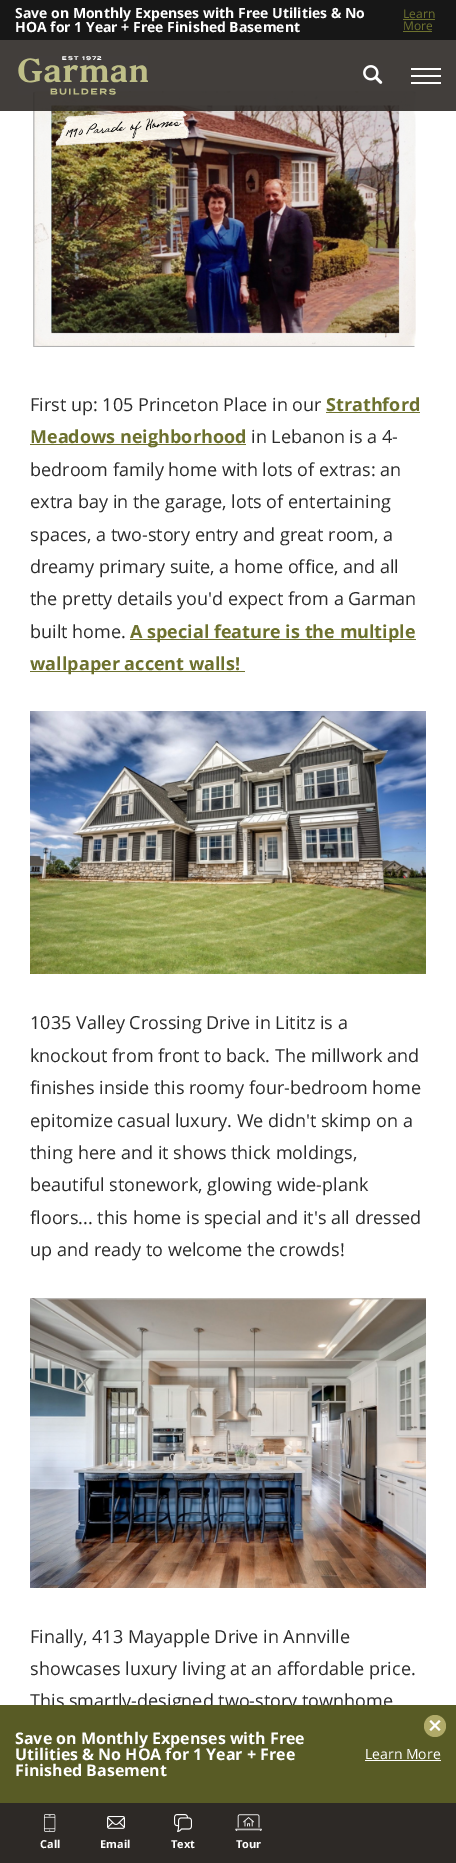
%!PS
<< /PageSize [456 1863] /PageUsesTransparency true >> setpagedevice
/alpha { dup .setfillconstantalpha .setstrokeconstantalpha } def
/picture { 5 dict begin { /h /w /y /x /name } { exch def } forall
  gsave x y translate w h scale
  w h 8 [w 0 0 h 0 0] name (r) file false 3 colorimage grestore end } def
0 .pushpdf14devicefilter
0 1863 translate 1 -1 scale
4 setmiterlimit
1 setgray
0 0 456 1863 rectfill
(img3.rgb) 33 91 383 256 picture
0.9 alpha
0.176 0.161 0.149 setrgbcolor
0 40 456 71 rectfill
1 alpha
0.09 setgray
0 0 456 40 rectfill
/OpenSans-Bold [14 0 0 -14 0 0] selectfont
1 setgray
15 18 moveto (Save on Monthly Expenses with Free Utilities & No) show
15 32 moveto (HOA for 1 Year + Free Finished Basement) show
/OpenSans-Regular [12 0 0 -12 0 0] selectfont
0.427 0.443 0.18 setrgbcolor
403 18 moveto (Learn) show
403 19 32 1 rectfill
403 30 moveto (More) show
403 31 29 1 rectfill
(img1.rgb) 18 56 130 39 picture
(img2.rgb) 363 65 20 19 picture
1 setgray
411 68 30 2 rectfill
411 75 30 2 rectfill
411 82 30 2 rectfill
/OpenSans-Regular [18 0 0 -18 0 0] selectfont
0.169 setgray
30 411 moveto (First up: 105 Princeton Place in our) show
/OpenSans-Bold [18 0 0 -18 0 0] selectfont
0.427 0.443 0.18 setrgbcolor
326 411 moveto (Strathford) show
326 412 94 1 rectfill
30 444 216 1 rectfill
30 443 moveto (Meadows neighborhood) show
/OpenSans-Regular [18 0 0 -18 0 0] selectfont
0.169 setgray
251 443 moveto (in Lebanon is a 4-) show
30 476 moveto (bedroom family home with lots of extras: an) show
30 508 moveto (extra bay in the garage, lots of entertaining) show
30 541 moveto (spaces, a two-story entry and great room, a) show
30 573 moveto (dreamy primary suite, a home office, and all) show
30 605 moveto (the pretty details you'd expect from a Garman) show
30 638 moveto (built home.) show
0.427 0.443 0.18 setrgbcolor
130 639 286 1 rectfill
/OpenSans-Bold [18 0 0 -18 0 0] selectfont
130 638 moveto (A special feature is the multiple) show
30 671 215 1 rectfill
30 670 moveto (wallpaper accent walls!) show
(img4.rgb) 30 711 396 263 picture
/OpenSans-Regular [18 0 0 -18 0 0] selectfont
0.169 setgray
30 1029 moveto (1035 Valley Crossing Drive in Lititz is a) show
30 1062 moveto (knockout from front to back. The millwork and) show
30 1094 moveto (finishes inside this roomy four-bedroom home) show
30 1127 moveto (epitomize casual luxury. We didn't skimp on a) show
30 1159 moveto (thing here and it shows thick moldings,) show
30 1191 moveto (beautiful stonework, glowing wide-plank) show
30 1224 moveto (floors... this home is special and it's all dressed) show
30 1256 moveto (up and ready to welcome the crowds!) show
(img5.rgb) 30 1298 396 290 picture
30 1643 moveto (Finally, 413 Mayapple Drive in Annville) show
30 1675 moveto (showcases luxury living at an affordable price.) show
30 1707 moveto (This smartly-designed two-story townhome) show
0.345 0.357 0.145 setrgbcolor
0 1705 456 98 rectfill
0.69 0.667 0.412 setrgbcolor
newpath 435 1726 11 0 360 arc closepath fill
1 setgray
newpath 439 1720 moveto 440.5 1721.5 lineto 431 1731 lineto 429.5 1729.5 lineto closepath fill
newpath 429.5 1721.5 moveto 431 1720 lineto 440.5 1729.5 lineto 439 1731 lineto closepath fill
/OpenSans-Bold [16 0 0 -16 0 0] selectfont
15 1744 moveto (Save on Monthly Expenses with Free) show
15 1760 moveto (Utilities & No HOA for 1 Year + Free) show
15 1776 moveto (Finished Basement) show
/OpenSans-Regular [14 0 0 -14 0 0] selectfont
365 1759 moveto (Learn More) show
365 1760 76 1 rectfill
0.176 0.161 0.149 setrgbcolor
0 1803 456 60 rectfill
(img6.rgb) 44 1814 12 18 picture
/OpenSans-Bold [11 0 0 -11 0 0] selectfont
1 setgray
40 1848 moveto (Call) show
(img7.rgb) 107 1816 18 13 picture
100 1848 moveto (Email) show
(img8.rgb) 174 1814 18 18 picture
171 1848 moveto (Text) show
(img9.rgb) 235 1814 27 17 picture
236 1848 moveto (Tour) show
.poppdf14devicefilter showpage
